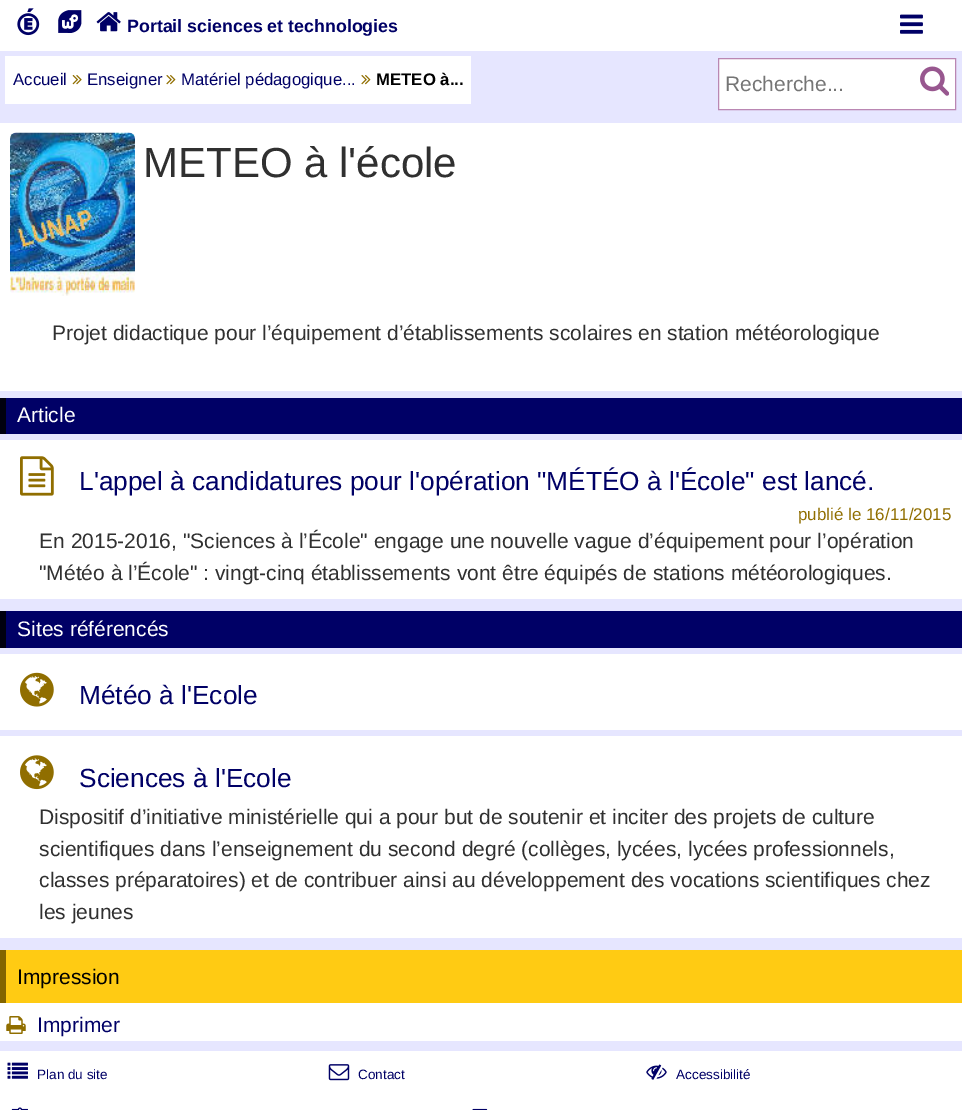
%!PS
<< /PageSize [962 1110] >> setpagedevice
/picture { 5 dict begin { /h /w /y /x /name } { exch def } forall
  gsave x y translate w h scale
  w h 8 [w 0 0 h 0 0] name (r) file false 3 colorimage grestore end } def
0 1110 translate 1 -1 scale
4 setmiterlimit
0.902 0.902 1 setrgbcolor
0 0 962 1110 rectfill
1 setgray
0 0 962 51 rectfill
(img1.rgb) 17 8 23 28 picture
(img2.rgb) 58 10 24 23 picture
(img3.rgb) 96 12 25 20 picture
/LiberationSans-Bold [17.8 0 0 -17.8 0 0] selectfont
0 0 0.4 setrgbcolor
127 32 moveto (Portail sciences et technologies) show
(img4.rgb) 900 14 23 20 picture
1 setgray
5 56 466 48 rectfill
/LiberationSans-Regular [16.75 0 0 -16.75 0 0] selectfont
0 0 0.4 setrgbcolor
13 85 moveto (Accueil) show
(img5.rgb) 72 75 10 10 picture
87 85 moveto (Enseigner) show
(img6.rgb) 166 75 10 10 picture
181 85 moveto (Matériel pédagogique...) show
(img6.rgb) 361 75 10 10 picture
/LiberationSans-Bold [16.75 0 0 -16.75 0 0] selectfont
0 setgray
376 85 moveto (METEO à...) show
1 setgray
newpath 718.5 58.5 moveto 955.5 58.5 lineto 955.5 109.5 lineto 718.5 109.5 lineto closepath gsave fill grestore
0.729 0.529 0.702 setrgbcolor
stroke
/LiberationSans-Regular [21 0 0 -21 0 0] selectfont
0.459 setgray
725 91 moveto (Recherche...) show
(img7.rgb) 920 66 29 30 picture
1 setgray
0 123 962 268 rectfill
(img8.rgb) 10 132 125 164 picture
/LiberationSans-Regular [42 0 0 -42 0 0] selectfont
0.188 setgray
143 177 moveto (METEO à l'école) show
/LiberationSans-Regular [21 0 0 -21 0 0] selectfont
52 340 moveto (Projet didactique pour l’équipement d’établissements scolaires en station météorologique) show
0 0 0.4 setrgbcolor
6 398 956 36 rectfill
0 0 0.059 setrgbcolor
0 398 6 36 rectfill
1 setgray
17 422 moveto (Article) show
0 440 962 159 rectfill
(img9.rgb) 20 456 34 40 picture
/LiberationSans-Regular [26.25 0 0 -26.25 0 0] selectfont
0 0 0.4 setrgbcolor
79 490 moveto (L'appel à candidatures pour l'opération "MÉTÉO à l'École" est lancé.) show
/LiberationSans-Regular [17 0 0 -17 0 0] selectfont
0.565 0.431 0 setrgbcolor
798 520 moveto (publié le 16/11/2015) show
/LiberationSans-Regular [21 0 0 -21 0 0] selectfont
0.188 setgray
39 548 moveto (En 2015-2016, "Sciences à l’École" engage une nouvelle vague d’équipement pour l’opération) show
39 580 moveto ("Météo à l’École" : vingt-cinq établissements vont être équipés de stations météorologiques.) show
0 0 0.4 setrgbcolor
6 611 956 37 rectfill
0 0 0.059 setrgbcolor
0 611 6 37 rectfill
1 setgray
17 636 moveto (Sites référencés) show
0 654 962 76 rectfill
(img10.rgb) 20 672 34 35 picture
/LiberationSans-Regular [26.25 0 0 -26.25 0 0] selectfont
0 0 0.4 setrgbcolor
79 704 moveto (Météo à l'Ecole) show
1 setgray
0 736 962 202 rectfill
(img11.rgb) 20 755 34 35 picture
0 0 0.4 setrgbcolor
79 787 moveto (Sciences à l'Ecole) show
/LiberationSans-Regular [21 0 0 -21 0 0] selectfont
0.188 setgray
39 824 moveto (Dispositif d’initiative ministérielle qui a pour but de soutenir et inciter des projets de culture) show
39 856 moveto (scientifiques dans l’enseignement du second degré \(collèges, lycées, lycées professionnels,) show
39 887 moveto (classes préparatoires\) et de contribuer ainsi au développement des vocations scientifiques chez) show
39 919 moveto (les jeunes) show
1 setgray
0 1003 962 38 rectfill
1 0.796 0.075 setrgbcolor
6 950 956 53 rectfill
0.514 0.396 0 setrgbcolor
0 950 6 53 rectfill
0 setgray
17 984 moveto (Impression) show
(img12.rgb) 6 1016 20 18 picture
0 0 0.4 setrgbcolor
37 1032 moveto (Imprimer) show
1 setgray
0 1051 962 59 rectfill
(img13.rgb) 7 1062 21 17 picture
/LiberationSans-Regular [13.5 0 0 -13.5 0 0] selectfont
0 0 0.4 setrgbcolor
37 1079 moveto (Plan du site) show
(img14.rgb) 328 1064 22 17 picture
358 1079 moveto (Contact) show
(img15.rgb) 646 1064 21 16 picture
676 1079 moveto (Accessibilité) show
(img16.rgb) 11 1107 17 3 picture
(img17.rgb) 472 1108 16 2 picture
showpage
